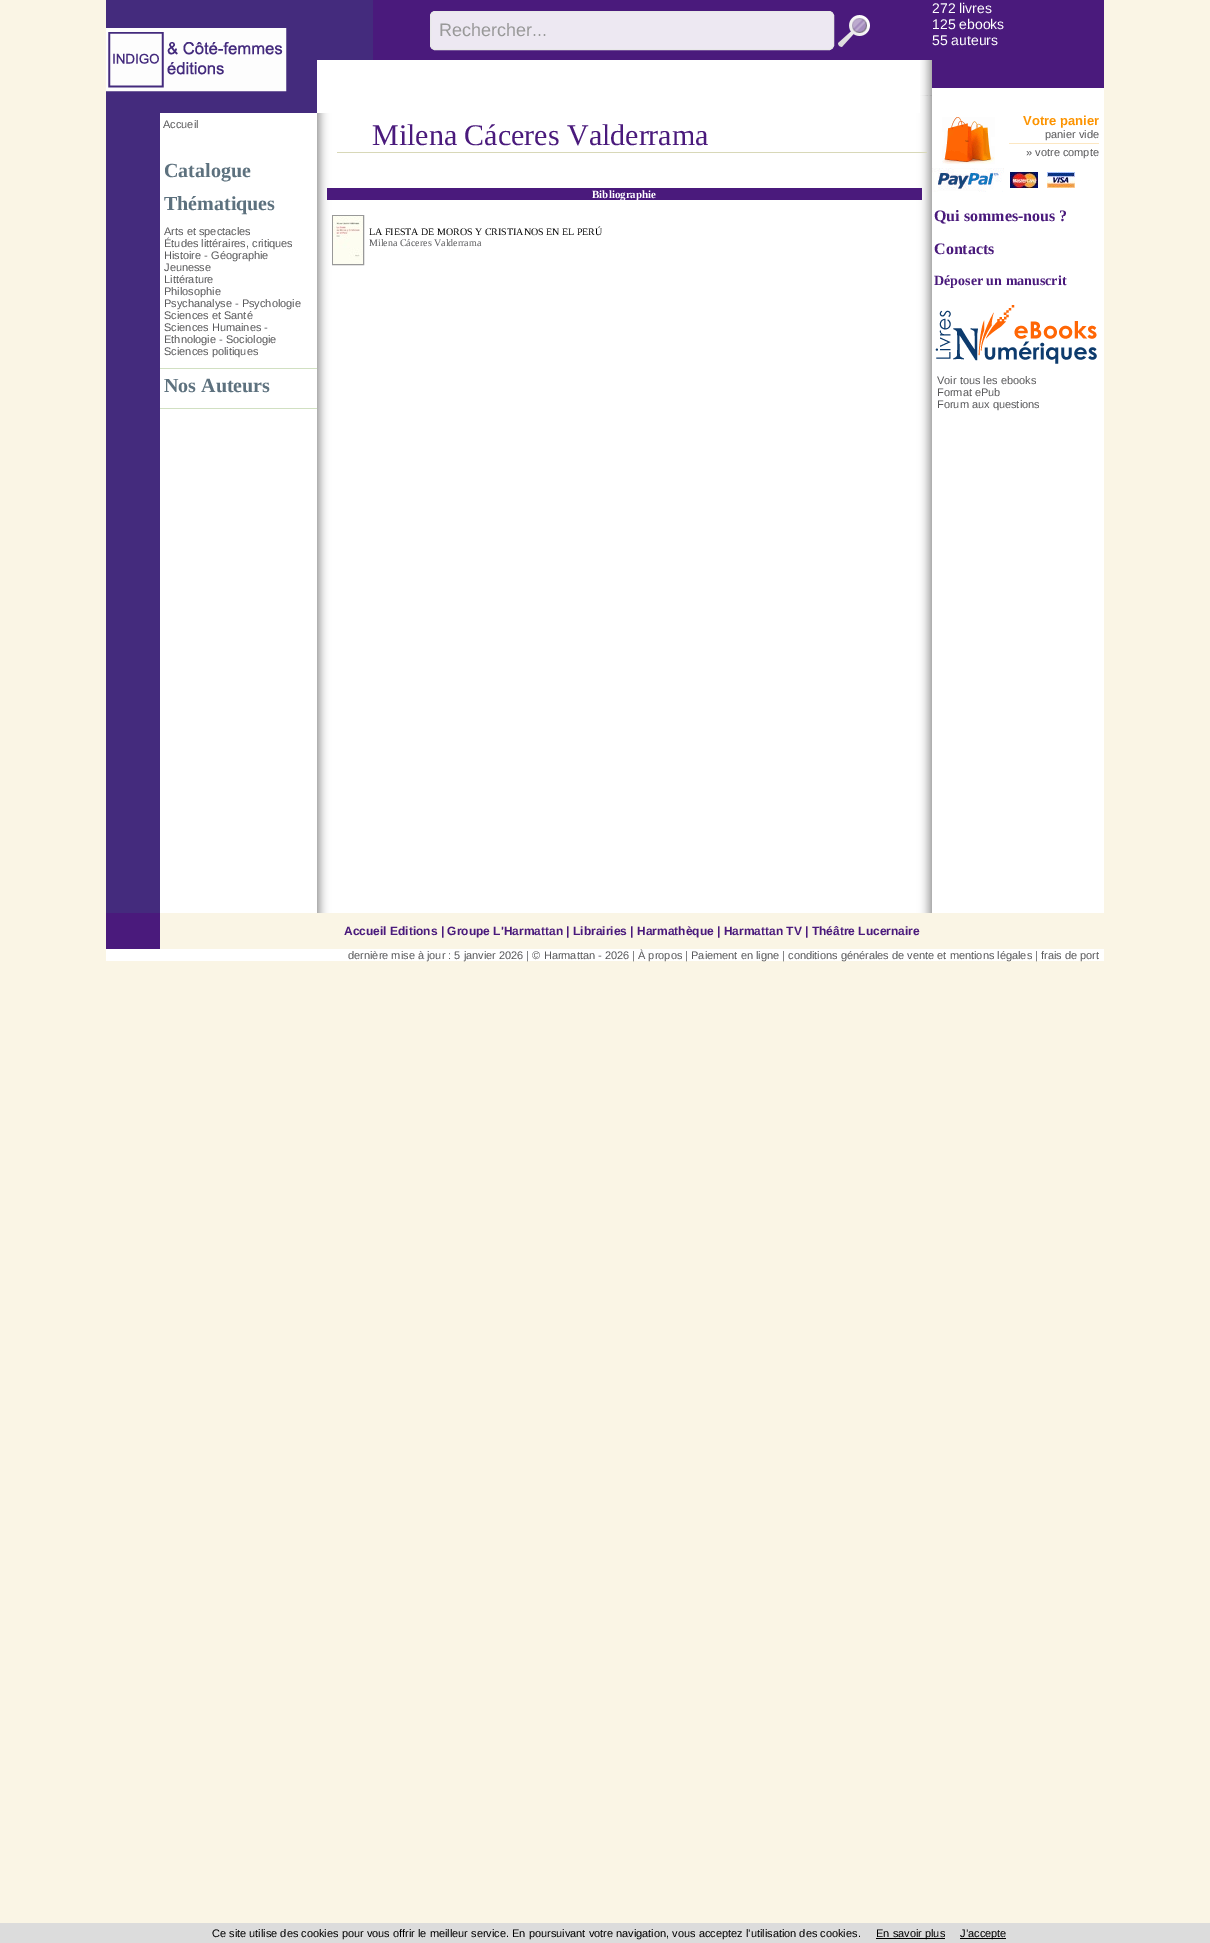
%!PS
<< /PageSize [1210 1943] >> setpagedevice
/roundrect { 5 dict begin { /r /h /w /y /x } { exch def } forall
  x r add y moveto x w add y 2 copy h add r arct x w add y h add x 1 index r arct
  x y h add x y r arct x y 2 copy exch w add exch r arct closepath end } def
/picture { 5 dict begin { /h /w /y /x /name } { exch def } forall
  gsave x y translate w h scale
  w h 8 [w 0 0 h 0 0] name (r) file false 3 colorimage grestore end } def
0 1943 translate 1 -1 scale
4 setmiterlimit
0.98 0.961 0.898 setrgbcolor
0 0 1210 1943 rectfill
1 setgray
160 60 944 853 rectfill
0.267 0.169 0.49 setrgbcolor
106 113 54 800 rectfill
(img1.rgb) 920 60 12 53 picture
(img2.rgb) 106 0 267 113 picture
0.29 0.102 0.486 setrgbcolor
373 0 559 60 rectfill
0.929 0.91 0.949 setrgbcolor
430.5 11.5 403 38 4.5 roundrect gsave fill grestore
0.91 setgray
stroke
/LiberationSans-Regular [18 0 0 -18 0 0] selectfont
0.6 setgray
439 36 moveto (Rechercher...) show
(img3.rgb) 838 15 32 32 picture
0.29 0.102 0.486 setrgbcolor
932 0 172 88 rectfill
/LiberationSans-Regular [14 0 0 -14 0 0] selectfont
1 setgray
932 13 moveto (272 livres) show
932 29 moveto (125 ebooks) show
932 45 moveto (55 auteurs) show
/LiberationSans-Regular [11 0 0 -11 0 0] selectfont
0.345 0.345 0.353 setrgbcolor
163 128 moveto (Accueil) show
/LiberationSerif-Bold [20 0 0 -20 0 0] selectfont
0.365 0.443 0.494 setrgbcolor
164 177 moveto (Catalogue) show
164 210 moveto (Thématiques) show
/LiberationSans-Regular [11 0 0 -11 0 0] selectfont
0.345 0.345 0.353 setrgbcolor
164 235 moveto (Arts et spectacles) show
164 247 moveto (Études littéraires, critiques) show
164 259 moveto (Histoire - Géographie) show
164 271 moveto (Jeunesse) show
164 283 moveto (Littérature) show
164 295 moveto (Philosophie) show
164 307 moveto (Psychanalyse - Psychologie) show
164 319 moveto (Sciences et Santé) show
164 331 moveto (Sciences Humaines -) show
164 343 moveto (Ethnologie - Sociologie) show
164 355 moveto (Sciences politiques) show
0.82 0.878 0.761 setrgbcolor
160 368 157 1 rectfill
/LiberationSerif-Bold [20 0 0 -20 0 0] selectfont
0.365 0.443 0.494 setrgbcolor
164 392 moveto (Nos Auteurs) show
0.82 0.878 0.761 setrgbcolor
160 408 157 1 rectfill
(img4.rgb) 317 113 615 800 picture
/LiberationSerif-Regular [30 0 0 -30 0 0] selectfont
0.29 0.102 0.486 setrgbcolor
372 145 moveto (Milena Cáceres Valderrama) show
0.847 0.847 0.722 setrgbcolor
337 152 590 1 rectfill
0.29 0.102 0.486 setrgbcolor
327 188 595 12 rectfill
/LiberationSerif-Bold [11 0 0 -11 0 0] selectfont
1 setgray
592 198 moveto (Bibliographie) show
0.6 setgray
332.5 215.5 31 49 rectstroke
(img5.rgb) 333 216 30 48 picture
/LiberationSerif-Regular [10 0 0 -10 0 0] selectfont
0 setgray
369 235 moveto (LA FIESTA DE MOROS Y CRISTIANOS EN EL PERÚ) show
0.345 0.345 0.353 setrgbcolor
369 246 moveto (Milena Cáceres Valderrama) show
(img6.rgb) 942 117 53 47 picture
/LiberationSans-Bold [13 0 0 -13 0 0] selectfont
0.992 0.58 0.004 setrgbcolor
1023 125 moveto (Votre panier) show
/LiberationSans-Regular [11 0 0 -11 0 0] selectfont
0.345 0.345 0.353 setrgbcolor
1045 138 moveto (panier vide) show
0.988 0.906 0.761 setrgbcolor
1009 143 90 1 rectfill
0.345 0.345 0.353 setrgbcolor
1026 156 moveto (» votre compte) show
(img7.rgb) 932 168 72 24 picture
(img8.rgb) 1010 172 28 16 picture
(img9.rgb) 1047 172 28 16 picture
/LiberationSerif-Bold [16 0 0 -16 0 0] selectfont
0.29 0.102 0.486 setrgbcolor
934 221 moveto (Qui sommes-nous ?) show
934 254 moveto (Contacts) show
/LiberationSerif-Bold [14 0 0 -14 0 0] selectfont
934 285 moveto (Déposer un manuscrit) show
(img10.rgb) 935 305 162 59 picture
/LiberationSans-Regular [11 0 0 -11 0 0] selectfont
0.345 0.345 0.353 setrgbcolor
937 384 moveto (Voir tous les ebooks) show
937 396 moveto (Format ePub) show
937 408 moveto (Forum aux questions) show
0.29 0.102 0.486 setrgbcolor
106 913 54 36 rectfill
/LiberationSans-Bold [12 0 0 -12 0 0] selectfont
344 935 moveto (Accueil Editions | Groupe L'Harmattan | Librairies | Harmathèque | Harmattan TV | Théâtre Lucernaire) show
1 setgray
106 949 998 12 rectfill
/LiberationSans-Regular [11 0 0 -11 0 0] selectfont
0.345 0.345 0.353 setrgbcolor
348 959 moveto (dernière mise à jour : 5 janvier 2026 | © Harmattan - 2026 | À propos | Paiement en ligne | conditions générales de vente et mentions légales | frais de port) show
0.863 setgray
0 1923 1210 20 rectfill
0 setgray
212 1937 moveto (Ce site utilise des cookies pour vous offrir le meilleur service. En poursuivant votre navigation, vous acceptez l’utilisation des cookies.) show
876 1938 69 1 rectfill
876 1937 moveto (En savoir plus) show
960 1938 46 1 rectfill
960 1937 moveto (J’accepte) show
showpage
